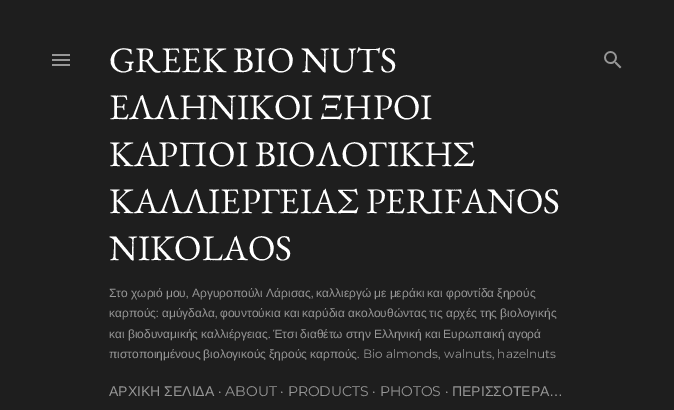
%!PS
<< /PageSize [674 410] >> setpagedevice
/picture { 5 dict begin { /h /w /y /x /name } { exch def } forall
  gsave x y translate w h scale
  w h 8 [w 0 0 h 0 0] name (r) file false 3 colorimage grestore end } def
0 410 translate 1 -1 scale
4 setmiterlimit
0.118 setgray
0 0 674 410 rectfill
(img1.rgb) 52 54 18 12 picture
/EBGaramond-Regular [36 0 0 -36 0 0] selectfont
1 setgray
109 72 moveto (GREEK BIO NUTS) show
109 119 moveto (ΕΛΛΗΝΙΚΟΙ ΞΗΡΟΙ) show
109 166 moveto (ΚΑΡΠΟΙ ΒΙΟΛΟΓΙΚΗΣ) show
109 213 moveto (ΚΑΛΛΙΕΡΓΕΙΑΣ PERIFANOS) show
109 260 moveto (NIKOLAOS) show
/LiberationSans-Regular [12 0 0 -12 0 0] selectfont
0.592 setgray
109 297 moveto -0.25 0 32 (Στο χωριό μου) widthshow
/Montserrat-Regular [12 0 0 -12 0 0] selectfont
186 297 moveto (,) show
/LiberationSans-Regular [12 0 0 -12 0 0] selectfont
192 297 moveto -0.25 0 32 (Αργυροπούλι Λάρισας) widthshow
/Montserrat-Regular [12 0 0 -12 0 0] selectfont
311 297 moveto (,) show
/LiberationSans-Regular [12 0 0 -12 0 0] selectfont
316 297 moveto -0.25 0 32 (καλλιεργώ με μεράκι και φροντίδα ξηρούς) widthshow
109 317 moveto (καρπούς) show
/Montserrat-Regular [12 0 0 -12 0 0] selectfont
156 317 moveto (:) show
/LiberationSans-Regular [12 0 0 -12 0 0] selectfont
162 317 moveto (αμύγδαλα) show
/Montserrat-Regular [12 0 0 -12 0 0] selectfont
215 317 moveto (,) show
/LiberationSans-Regular [12 0 0 -12 0 0] selectfont
220 317 moveto -0.25 0 32 (φουντούκια και καρύδια ακολουθώντας τις αρχές της βιολογικής) widthshow
109 338 moveto -0.25 0 32 (και βιοδυναμικής καλλιέργειας) widthshow
/Montserrat-Regular [12 0 0 -12 0 0] selectfont
268 338 moveto (.) show
/LiberationSans-Regular [12 0 0 -12 0 0] selectfont
273 338 moveto -0.25 0 32 (Έτσι διαθέτω στην Ελληνική και Ευρωπαική αγορά) widthshow
109 358 moveto -0.25 0 32 (πιστοποιημένους βιολογικούς ξηρούς καρπούς) widthshow
/Montserrat-Regular [12 0 0 -12 0 0] selectfont
357 358 moveto (. Bio almonds, walnuts, hazelnuts) show
/LiberationSans-Regular [14 0 0 -14 0 0] selectfont
109 396 moveto (ΑΡΧΙΚΗ ΣΕΛΙΔΑ) show
/Montserrat-Regular [14 0 0 -14 0 0] selectfont
218 396 moveto (· ABOUT · PRODUCTS · PHOTOS ·) show
/LiberationSans-Regular [14 0 0 -14 0 0] selectfont
452 396 moveto (ΠΕΡΙΣΣΟΤΕΡΑ…) show
(img2.rgb) 604 51 18 18 picture
showpage
